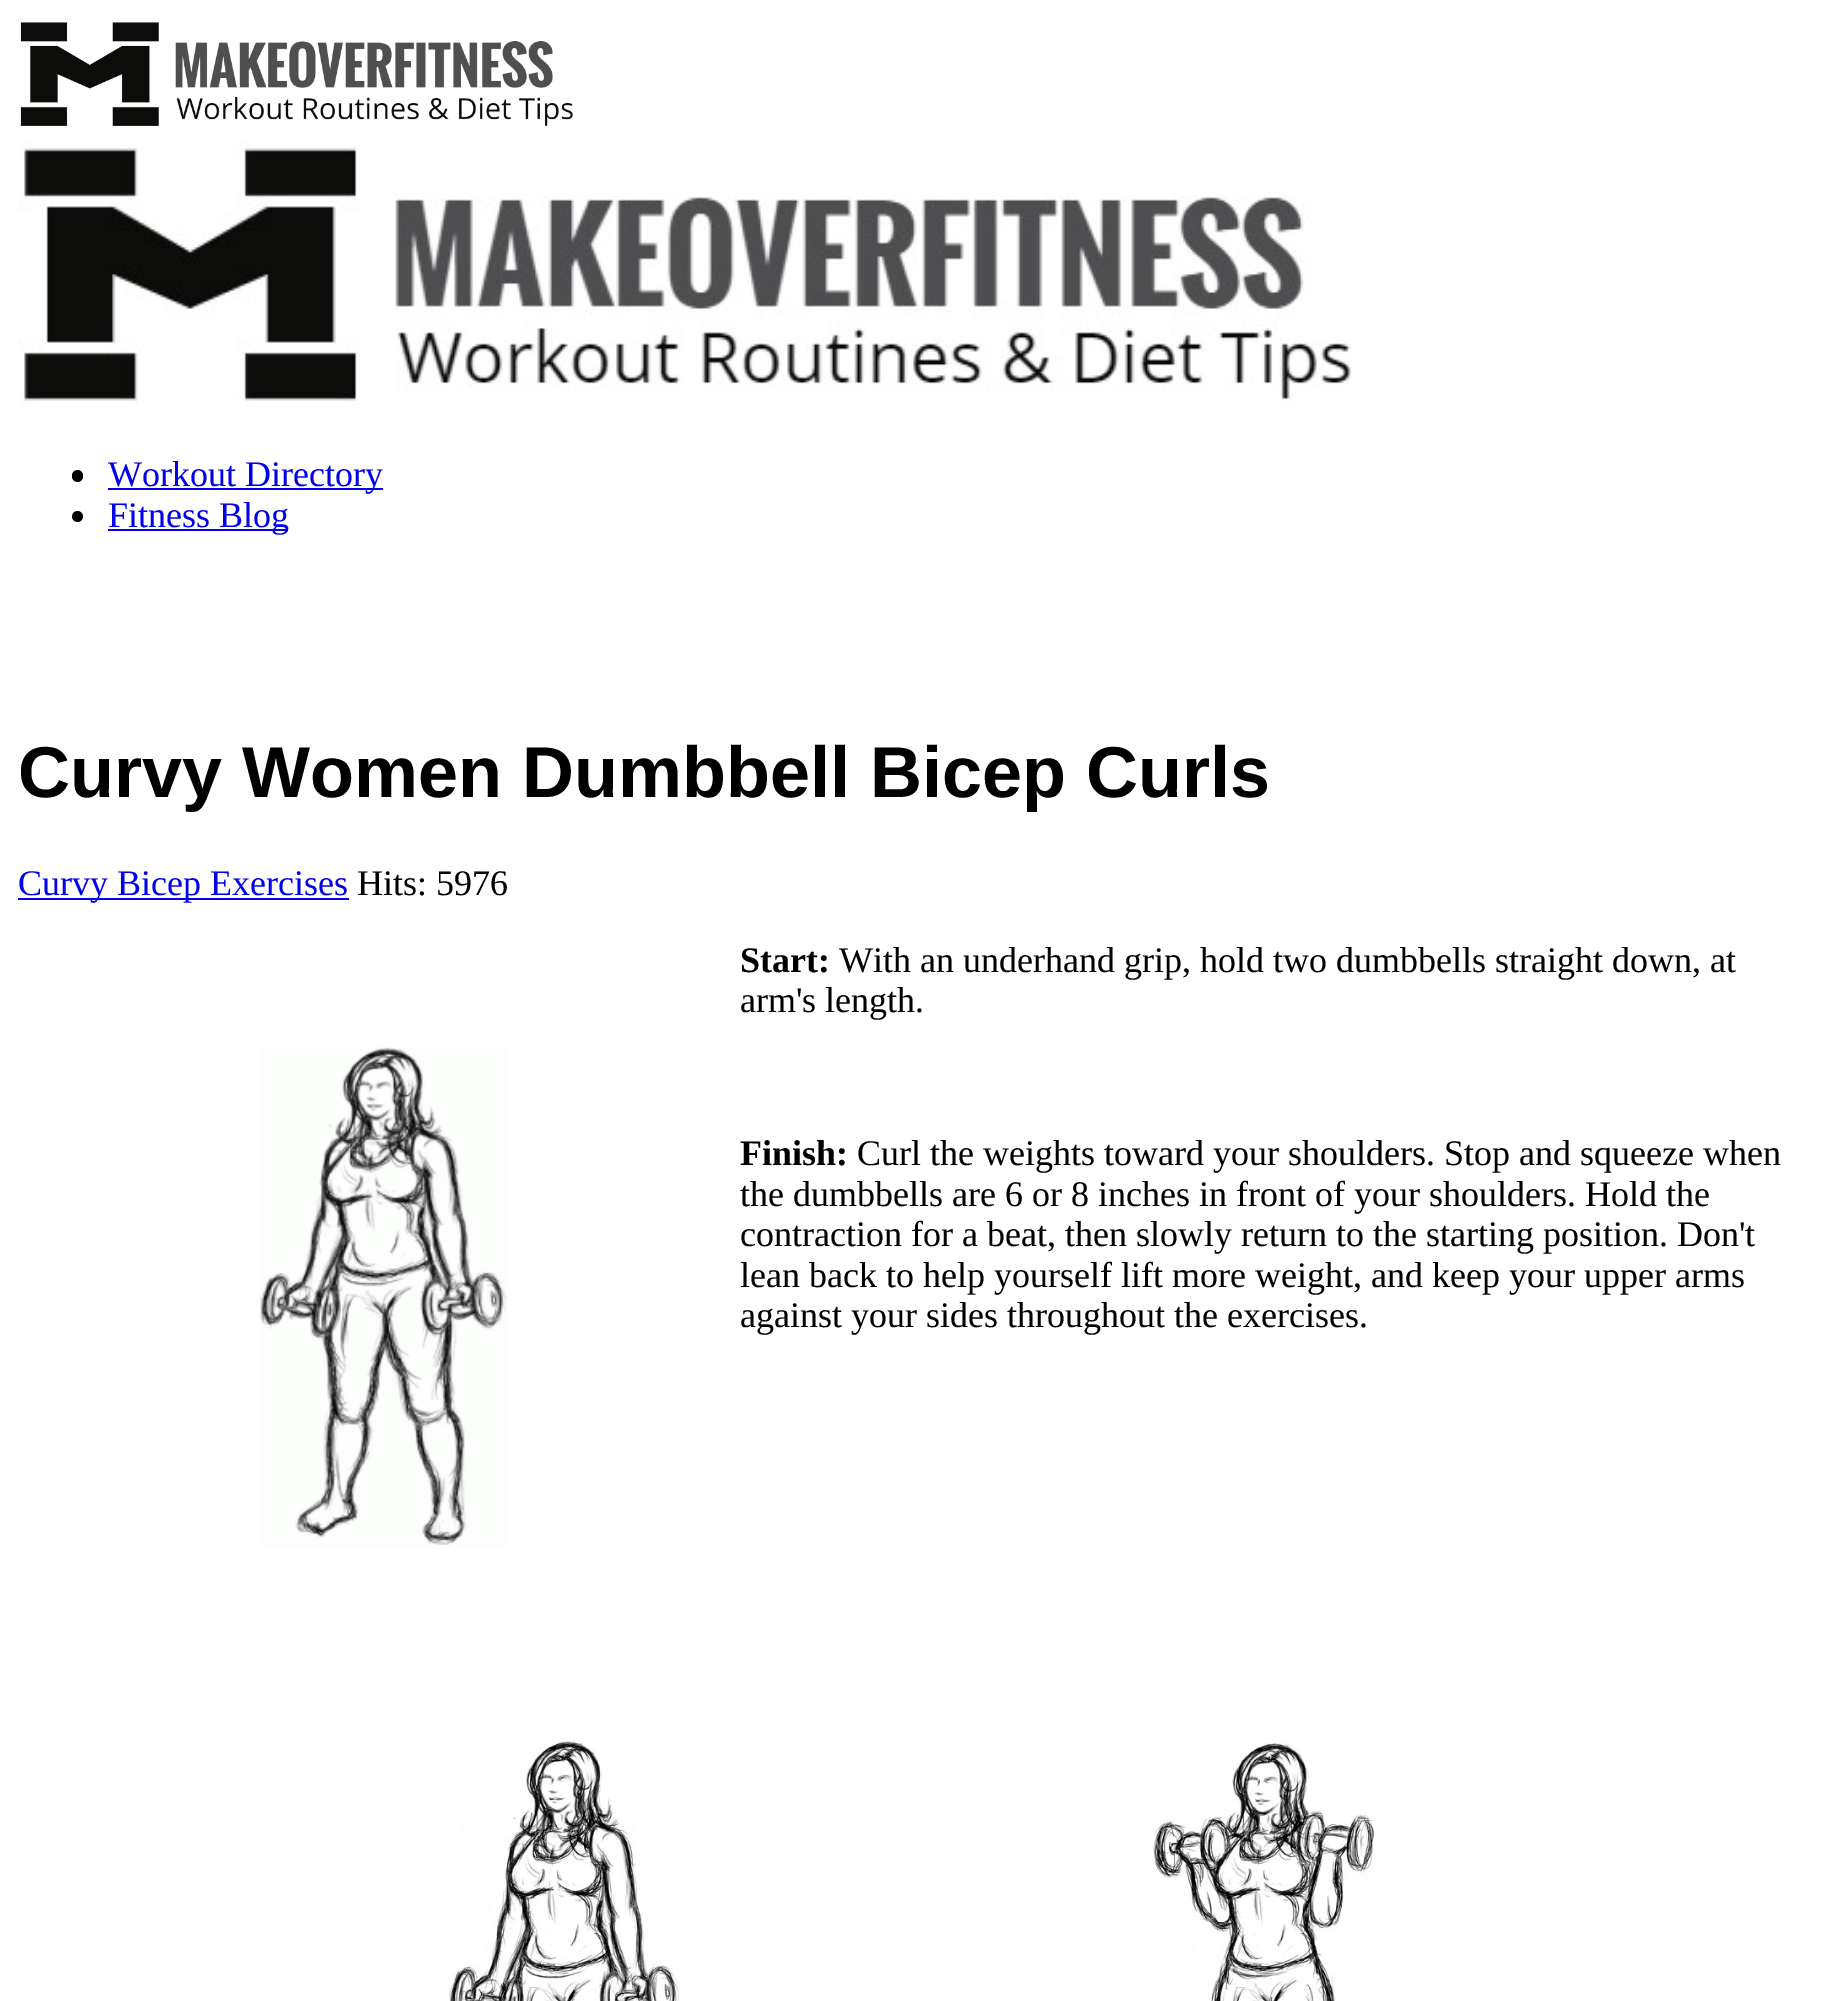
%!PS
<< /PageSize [1826 2001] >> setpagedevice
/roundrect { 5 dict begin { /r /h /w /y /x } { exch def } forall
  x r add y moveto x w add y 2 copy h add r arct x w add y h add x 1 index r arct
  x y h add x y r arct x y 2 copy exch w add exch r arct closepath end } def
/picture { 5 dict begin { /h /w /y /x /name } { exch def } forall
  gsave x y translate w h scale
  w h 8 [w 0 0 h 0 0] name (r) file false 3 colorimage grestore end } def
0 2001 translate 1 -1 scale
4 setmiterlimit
1 setgray
0 0 1826 2001 rectfill
(img1.rgb) 20 22 553 104 picture
(img2.rgb) 18 142 1333 265 picture
0 setgray
72 470 11 12 5.5 roundrect fill
0 0 0.933 setrgbcolor
108 488 275 2 rectfill
/LiberationSerif-Regular [36 0 0 -36 0 0] selectfont
108 486 moveto (Workout Directory) show
0 setgray
newpath 77.5 516.5 5.5 0 360 arc closepath fill
0 0 0.933 setrgbcolor
108 529 180 2 rectfill
108 527 moveto (Fitness Blog) show
/LiberationSans-Bold [72 0 0 -72 0 0] selectfont
0 setgray
18 797 moveto (Curvy Women Dumbbell Bicep Curls) show
0 0 0.933 setrgbcolor
18 898 331 2 rectfill
/LiberationSerif-Regular [36 0 0 -36 0 0] selectfont
18 895 moveto (Curvy Bicep Exercises) show
0 setgray
357 895 moveto (Hits: 5976) show
/LiberationSerif-Bold [36 0 0 -36 0 0] selectfont
740 972 moveto (Start:) show
/LiberationSerif-Regular [36 0 0 -36 0 0] selectfont
839 972 moveto (With an underhand grip, hold two dumbbells straight down, at) show
740 1012 moveto (arm's length.) show
(img3.rgb) 259 1047 248 501 picture
/LiberationSerif-Bold [36 0 0 -36 0 0] selectfont
740 1165 moveto (Finish:) show
/LiberationSerif-Regular [36 0 0 -36 0 0] selectfont
857 1165 moveto (Curl the weights toward your shoulders. Stop and squeeze when) show
740 1206 moveto (the dumbbells are 6 or 8 inches in front of your shoulders. Hold the) show
740 1246 moveto (contraction for a beat, then slowly return to the starting position. Don't) show
740 1287 moveto (lean back to help yourself lift more weight, and keep your upper arms) show
740 1327 moveto (against your sides throughout the exercises.) show
(img4.rgb) 449 1740 232 261 picture
(img5.rgb) 1152 1743 223 258 picture
showpage
